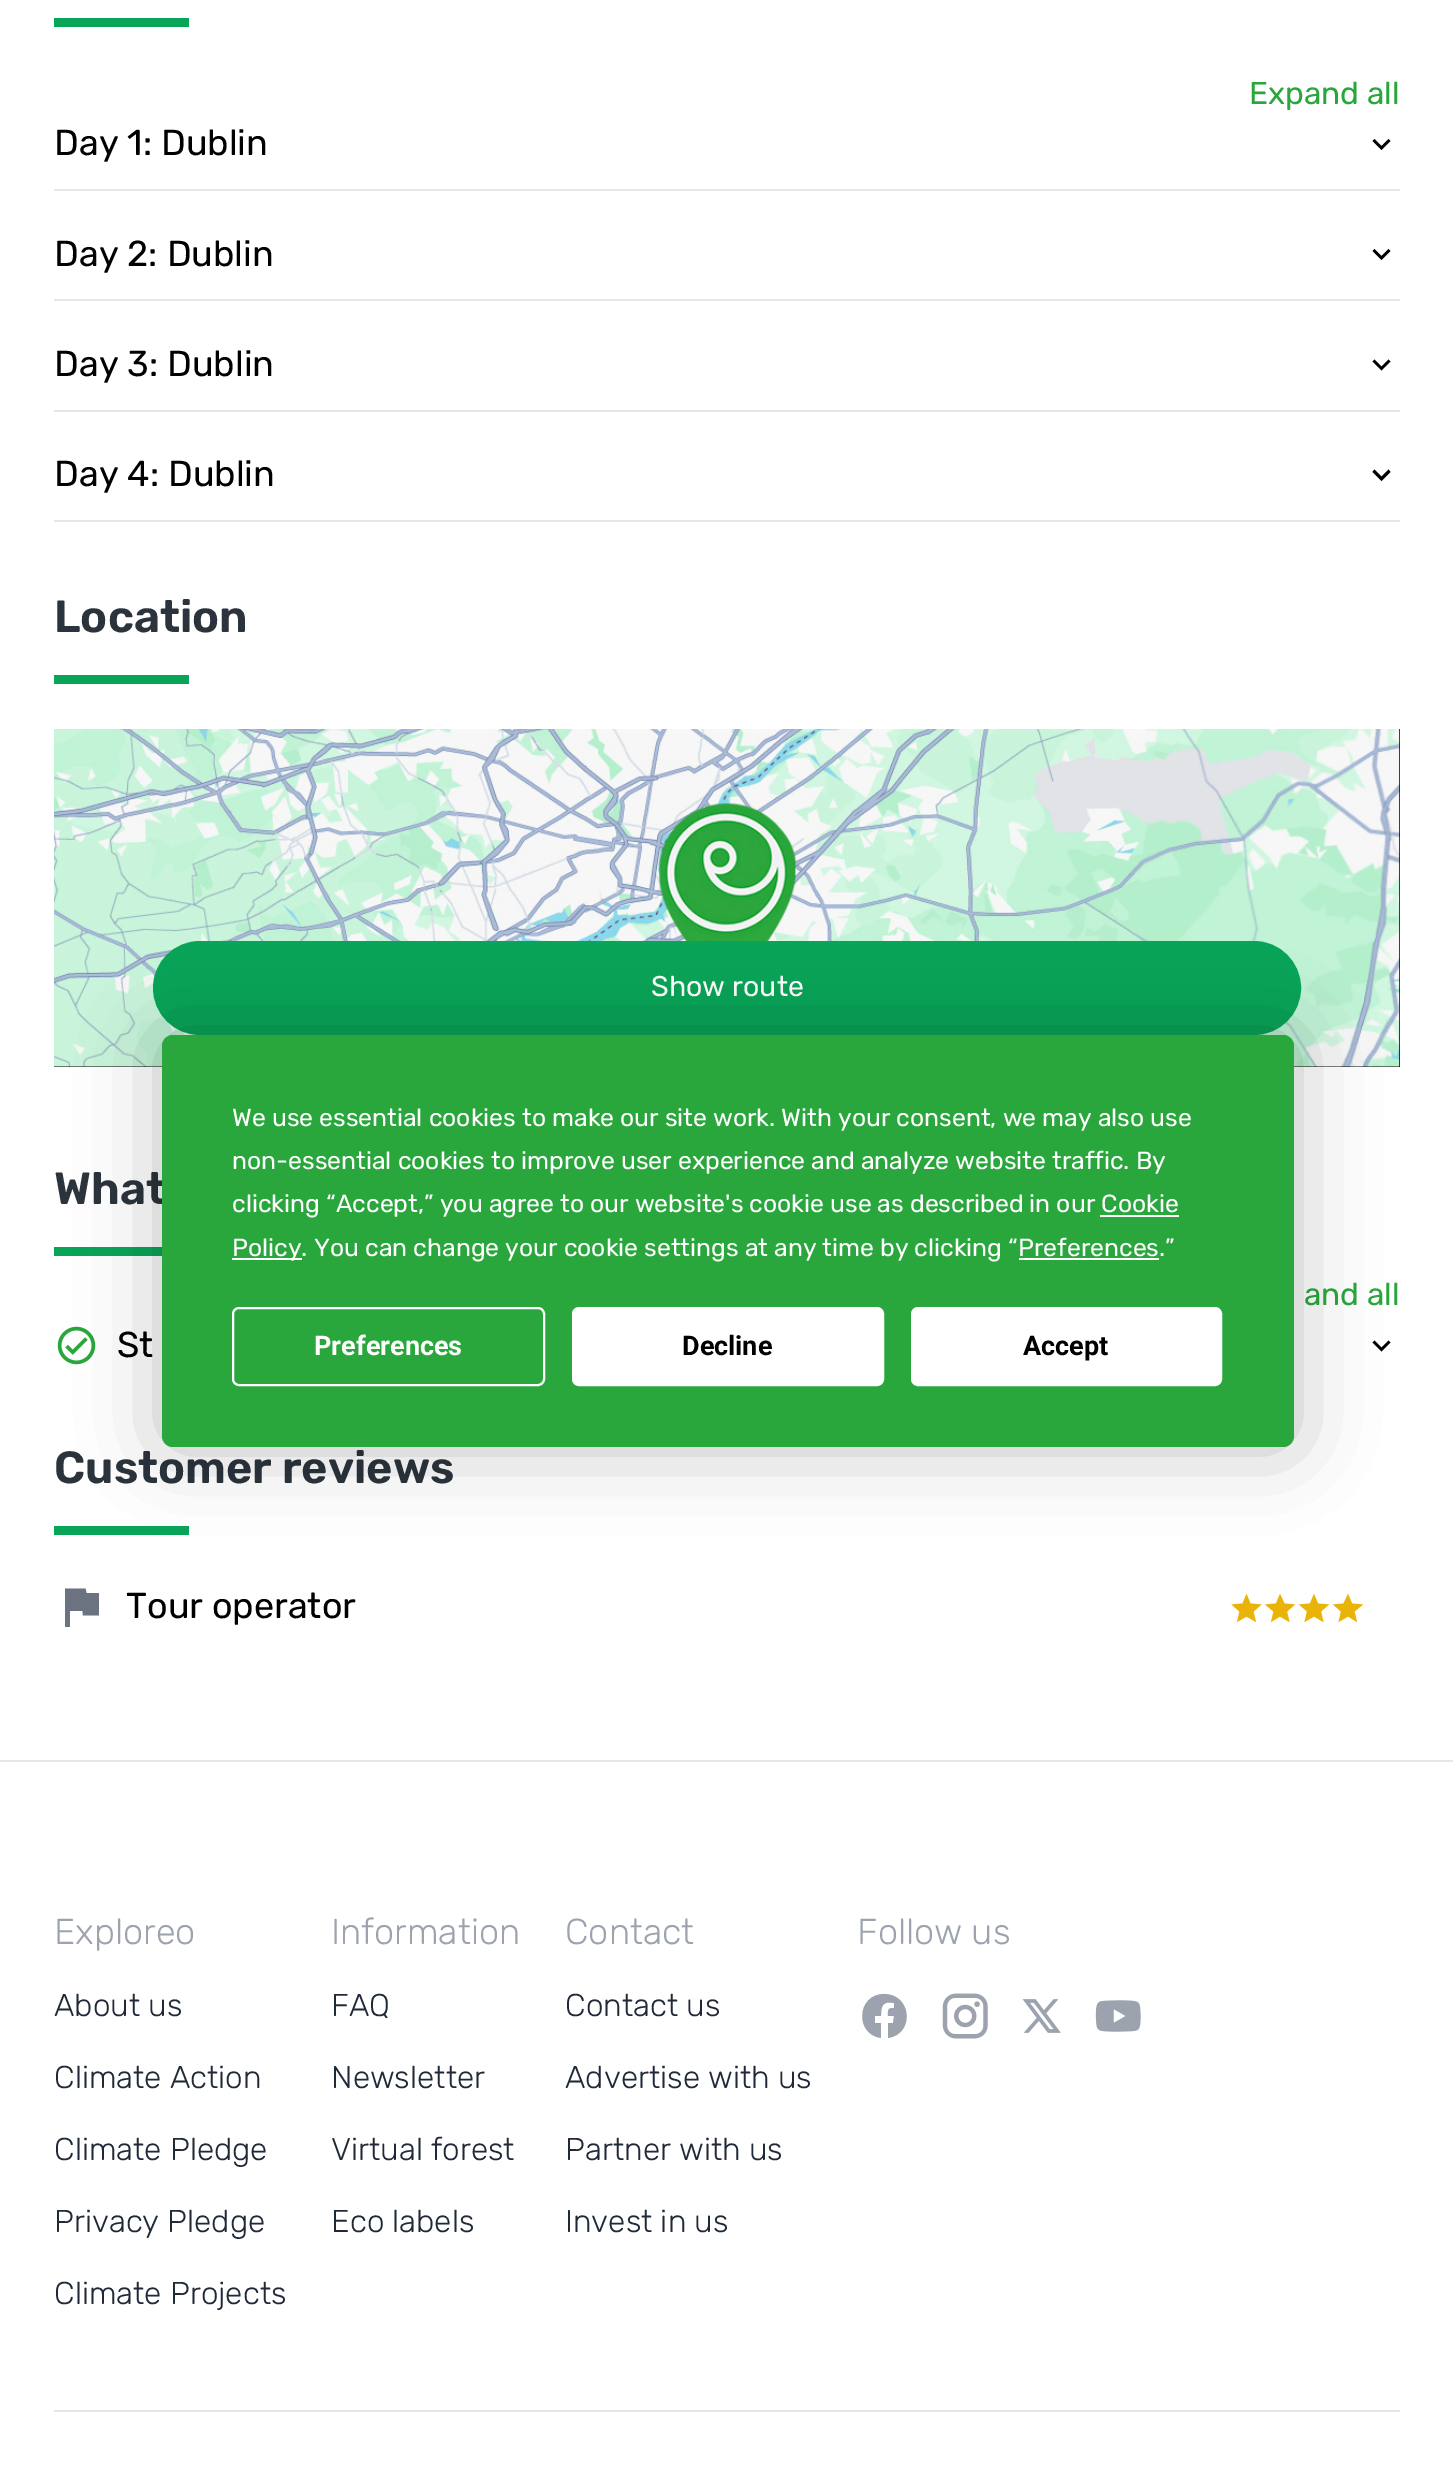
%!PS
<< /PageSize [1453 2480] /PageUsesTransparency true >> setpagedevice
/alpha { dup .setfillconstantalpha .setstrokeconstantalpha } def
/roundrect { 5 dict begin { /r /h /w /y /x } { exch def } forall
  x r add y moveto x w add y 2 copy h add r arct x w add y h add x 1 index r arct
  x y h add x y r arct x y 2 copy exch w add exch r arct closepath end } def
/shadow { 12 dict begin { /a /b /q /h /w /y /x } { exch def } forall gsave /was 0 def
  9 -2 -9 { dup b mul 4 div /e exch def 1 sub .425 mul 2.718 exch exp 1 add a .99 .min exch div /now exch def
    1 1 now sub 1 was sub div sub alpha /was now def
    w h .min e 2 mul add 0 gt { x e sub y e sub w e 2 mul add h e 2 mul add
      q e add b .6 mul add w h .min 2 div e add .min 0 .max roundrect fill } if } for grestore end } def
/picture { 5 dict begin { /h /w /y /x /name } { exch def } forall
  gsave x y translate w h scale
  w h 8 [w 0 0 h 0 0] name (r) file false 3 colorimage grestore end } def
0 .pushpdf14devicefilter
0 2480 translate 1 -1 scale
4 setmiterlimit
1 setgray
0 0 1453 2480 rectfill
0.031 0.643 0.345 setrgbcolor
54 18 135 9 rectfill
/Rubik-Regular [31.5 0 0 -31.5 0 0] selectfont
0.161 0.651 0.235 setrgbcolor
1249 104 moveto (Expand all) show
0.898 0.906 0.922 setrgbcolor
54 189 1346 2 rectfill
/Rubik-Regular [36 0 0 -36 0 0] selectfont
0 setgray
54 155 moveto (Day 1: Dublin) show
newpath 1374.5 139 moveto 1381.5 146 lineto 1388.5 139 lineto 1390.5 141 lineto 1381.5 150 lineto 1372.5 141 lineto closepath fill
0.898 0.906 0.922 setrgbcolor
54 299 1346 2 rectfill
0 setgray
54 266 moveto (Day 2: Dublin) show
newpath 1374.5 249 moveto 1381.5 256 lineto 1388.5 249 lineto 1390.5 251 lineto 1381.5 260 lineto 1372.5 251 lineto closepath fill
0.898 0.906 0.922 setrgbcolor
54 410 1346 2 rectfill
0 setgray
54 376 moveto (Day 3: Dublin) show
newpath 1374.5 359.5 moveto 1381.5 366.5 lineto 1388.5 359.5 lineto 1390.5 361.5 lineto 1381.5 370.5 lineto 1372.5 361.5 lineto closepath fill
0.898 0.906 0.922 setrgbcolor
54 520 1346 2 rectfill
0 setgray
54 486 moveto (Day 4: Dublin) show
newpath 1374.5 469.5 moveto 1381.5 476.5 lineto 1388.5 469.5 lineto 1390.5 472 lineto 1381.5 481 lineto 1372.5 472 lineto closepath fill
/Rubik-SemiBold [45 0 0 -45 0 0] selectfont
0.169 0.204 0.235 setrgbcolor
54 632 moveto (Location) show
0.031 0.643 0.345 setrgbcolor
54 675 135 9 rectfill
0 setgray
54 729 1346 338 rectfill
(img1.rgb) 54 729 1346 338 picture
0.031 0.643 0.345 setrgbcolor
154 942 1146 92 46 roundrect gsave fill grestore
2 setlinewidth
stroke
/Rubik-Regular [28.5 0 0 -28.5 0 0] selectfont
1 setgray
651 996 moveto (Show route) show
/Rubik-SemiBold [45 0 0 -45 0 0] selectfont
0.169 0.204 0.235 setrgbcolor
54 1204 moveto (What) show
0.031 0.643 0.345 setrgbcolor
54 1247 108 9 rectfill
/Rubik-Regular [31.5 0 0 -31.5 0 0] selectfont
0.161 0.651 0.235 setrgbcolor
1304 1305 moveto (and all) show
(img2.rgb) 57 1326 39 39 picture
/Rubik-Regular [36 0 0 -36 0 0] selectfont
0 setgray
117 1357 moveto (St) show
newpath 1374.5 1340.5 moveto 1381.5 1347.5 lineto 1388.5 1340.5 lineto 1390.5 1342.5 lineto 1381.5 1351.5 lineto 1372.5 1342.5 lineto closepath fill
/Rubik-SemiBold [45 0 0 -45 0 0] selectfont
0.169 0.204 0.235 setrgbcolor
54 1483 moveto (Customer reviews) show
0.031 0.643 0.345 setrgbcolor
54 1526 135 9 rectfill
0.42 0.447 0.502 setrgbcolor
newpath 86.5 1593 moveto 85.5 1588.5 lineto 65 1588.5 lineto 65 1627 lineto 70 1627 lineto 70 1611 lineto 82.5 1611 lineto 83 1615.5 lineto 99 1615.5 lineto 99 1593 lineto closepath fill
/Rubik-Regular [36 0 0 -36 0 0] selectfont
0 setgray
126 1618 moveto (Tour operator) show
0.918 0.702 0.031 setrgbcolor
newpath 1246.5 1616.5 moveto 1256 1622 lineto 1253.5 1611.5 lineto 1261.5 1604.5 lineto 1250.5 1603.5 lineto 1246.5 1594 lineto 1242.5 1603.5 lineto 1231.5 1604.5 lineto 1239.5 1611.5 lineto 1237 1622 lineto closepath fill
newpath 1280 1616.5 moveto 1289.5 1622 lineto 1287 1611.5 lineto 1295 1604.5 lineto 1284.5 1603.5 lineto 1280 1594 lineto 1276 1603.5 lineto 1265 1604.5 lineto 1273.5 1611.5 lineto 1271 1622 lineto closepath fill
newpath 1314 1616.5 moveto 1323.5 1622 lineto 1321 1611.5 lineto 1329 1604.5 lineto 1318 1603.5 lineto 1314 1594 lineto 1310 1603.5 lineto 1299 1604.5 lineto 1307 1611.5 lineto 1304.5 1622 lineto closepath fill
newpath 1348 1616.5 moveto 1357 1622 lineto 1354.5 1611.5 lineto 1363 1604.5 lineto 1352 1603.5 lineto 1348 1594 lineto 1343.5 1603.5 lineto 1333 1604.5 lineto 1341 1611.5 lineto 1338.5 1622 lineto closepath fill
0.898 0.906 0.922 setrgbcolor
0 1760 1453 2 rectfill
/Rubik-Light [36 0 0 -36 0 0] selectfont
0.612 0.639 0.686 setrgbcolor
54 1944 moveto (Exploreo) show
/Rubik-Light [31.5 0 0 -31.5 0 0] selectfont
0.122 0.161 0.216 setrgbcolor
54 2016 moveto (About us) show
54 2088 moveto (Climate Action) show
54 2160 moveto (Climate Pledge) show
54 2232 moveto (Privacy Pledge) show
54 2304 moveto (Climate Projects) show
/Rubik-Light [36 0 0 -36 0 0] selectfont
0.612 0.639 0.686 setrgbcolor
331 1944 moveto (Information) show
/Rubik-Light [31.5 0 0 -31.5 0 0] selectfont
0.122 0.161 0.216 setrgbcolor
331 2016 moveto (FAQ) show
331 2088 moveto (Newsletter) show
331 2160 moveto (Virtual forest) show
331 2232 moveto (Eco labels) show
/Rubik-Light [36 0 0 -36 0 0] selectfont
0.612 0.639 0.686 setrgbcolor
565 1944 moveto (Contact) show
/Rubik-Light [31.5 0 0 -31.5 0 0] selectfont
0.122 0.161 0.216 setrgbcolor
565 2016 moveto (Contact us) show
565 2088 moveto (Advertise with us) show
565 2160 moveto (Partner with us) show
565 2232 moveto (Invest in us) show
/Rubik-Light [36 0 0 -36 0 0] selectfont
0.612 0.639 0.686 setrgbcolor
857 1944 moveto (Follow us) show
newpath 884 1994 moveto 857 1994 854 2034 881 2038 curveto 881 2023 lineto 875 2023 lineto 875 2016 lineto 881 2016 lineto 881 2005 883 2001 894 2003 curveto 894 2008 lineto 887 2008 888 2010 888 2016 curveto 894 2016 lineto 893 2023 lineto 888 2023 lineto 888 2038 lineto 915 2034 912 1994 884 1994 curveto fill
(img3.rgb) 942 1993 46 46 picture
(img4.rgb) 1022 1999 39 34 picture
(img5.rgb) 1095 2000 46 32 picture
0.898 0.906 0.922 setrgbcolor
54 2410 1346 2 rectfill
0 setgray
162 1035 1132 412 11 39.5 0.25 shadow
0.161 0.651 0.235 setrgbcolor
162 1035 1132 412 11 roundrect fill
/Rubik-Regular [24.75 0 0 -24.75 0 0] selectfont
1 setgray
232 1126 moveto (We use essential cookies to make our site work. With your consent, we may also use) show
232 1169 moveto (non-essential cookies to improve user experience and analyze website traffic. By) show
232 1212 moveto (clicking “Accept,” you agree to our website's cookie use as described in our Cookie) show
232 1258 70 2 rectfill
232 1256 moveto (Policy. You can change your cookie settings at any time by clicking “Preferences.”) show
1100 1215 79 2 rectfill
1019 1258 140 2 rectfill
233 1308 311 77 6 roundrect stroke
/Roboto-Bold [27 0 0 -27 0 0] selectfont
314 1355 moveto (Preferences) show
573 1308 310 77 6 roundrect gsave fill grestore
stroke
0 setgray
682 1355 moveto (Decline) show
1 setgray
912 1308 309 77 6 roundrect gsave fill grestore
stroke
0 setgray
1023 1355 moveto (Accept) show
.poppdf14devicefilter showpage
